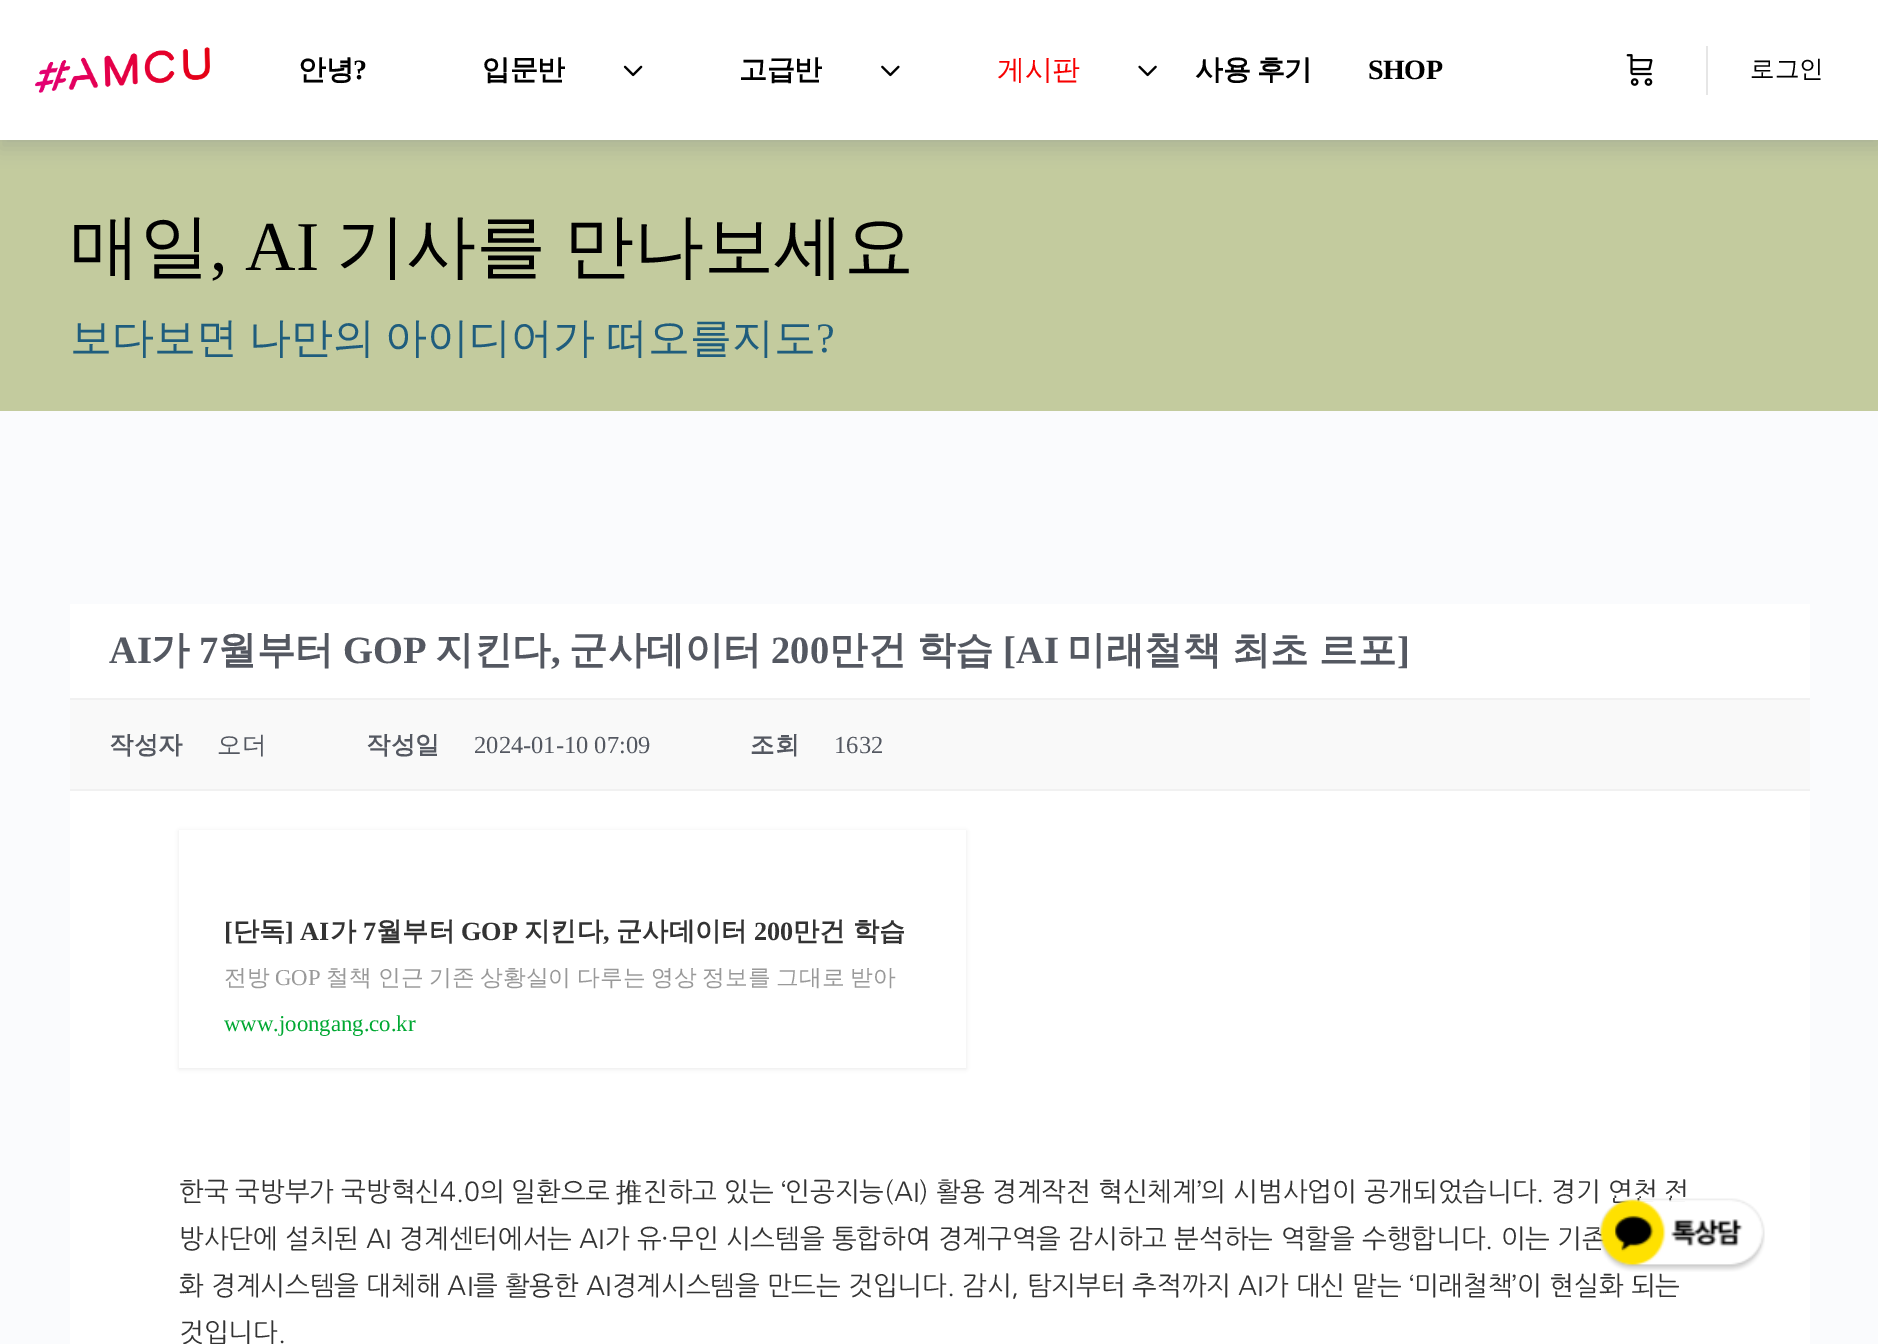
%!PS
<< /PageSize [1878 1344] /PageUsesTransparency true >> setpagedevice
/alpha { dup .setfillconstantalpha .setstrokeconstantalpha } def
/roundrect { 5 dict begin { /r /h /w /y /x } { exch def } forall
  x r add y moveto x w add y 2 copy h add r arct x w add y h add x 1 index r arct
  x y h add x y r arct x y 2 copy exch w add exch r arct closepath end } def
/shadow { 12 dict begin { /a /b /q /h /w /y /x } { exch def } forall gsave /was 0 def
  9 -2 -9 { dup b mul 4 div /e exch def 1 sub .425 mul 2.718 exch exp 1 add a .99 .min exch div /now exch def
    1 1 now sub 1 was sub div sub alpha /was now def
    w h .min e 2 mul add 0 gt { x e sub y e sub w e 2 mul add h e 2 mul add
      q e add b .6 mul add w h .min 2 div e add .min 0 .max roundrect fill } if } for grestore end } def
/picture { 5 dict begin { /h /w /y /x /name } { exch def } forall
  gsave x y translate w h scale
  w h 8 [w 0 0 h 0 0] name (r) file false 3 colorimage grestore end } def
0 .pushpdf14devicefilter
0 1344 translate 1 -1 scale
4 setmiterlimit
0.98 0.984 0.992 setrgbcolor
0 0 1878 1344 rectfill
0.765 0.796 0.62 setrgbcolor
0 140 1878 271 rectfill
0.255 0.278 0.424 setrgbcolor
0 9 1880 140 0 9 0.15 shadow
0.05 alpha
0.545 0.553 0.616 setrgbcolor
newpath 0 140 moveto 0 142 lineto 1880 142 lineto 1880 2 lineto 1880 140 lineto closepath fill
1 alpha
1 setgray
0 0 1878 140 rectfill
(img1.rgb) 35 47 175 46 picture
/WenQuanYiZenHei-Bold [28 0 0 -28 0 0] selectfont
0 setgray
298 79 moveto -0.5 0 (안녕) ashow
/LiberationSerif-Bold [28 0 0 -28 0 0] selectfont
353 79 moveto -0.5 0 (?) ashow
/WenQuanYiZenHei-Bold [28 0 0 -28 0 0] selectfont
482 79 moveto -0.5 0 (입문반) ashow
(img2.rgb) 623 65 20 12 picture
739 79 moveto -0.5 0 (고급반) ashow
(img3.rgb) 881 65 19 12 picture
/WenQuanYiZenHei-Medium [28 0 0 -28 0 0] selectfont
0.969 0 0 setrgbcolor
997 79 moveto -0.5 0 (게시판) ashow
(img4.rgb) 1138 65 19 12 picture
/WenQuanYiZenHei-Bold [28 0 0 -28 0 0] selectfont
0 setgray
1195 79 moveto -1 0 32 -0.5 0 (사용 후기) awidthshow
/LiberationSerif-Bold [28 0 0 -28 0 0] selectfont
1368 79 moveto -0.5 0 (SHOP) ashow
(img5.rgb) 1626 54 27 32 picture
0.902 setgray
1706 46 2 49 rectfill
/WenQuanYiZenHei-Medium [24.5 0 0 -24.5 0 0] selectfont
0 setgray
1750 77 moveto (로그인) show
/WenQuanYiZenHei-Medium [70 0 0 -70 0 0] selectfont
70 270 moveto (매일) show
/LiberationSerif-Regular [70 0 0 -70 0 0] selectfont
210 270 moveto (, AI) show
/WenQuanYiZenHei-Medium [70 0 0 -70 0 0] selectfont
336 270 moveto (기사를) show
564 270 moveto (만나보세요) show
/WenQuanYiZenHei-Medium [42 0 0 -42 0 0] selectfont
0.122 0.365 0.49 setrgbcolor
70 352 moveto -2 0 32 (보다보면 나만의 아이디어가 떠오를지도) widthshow
/LiberationSerif-Regular [42 0 0 -42 0 0] selectfont
816 352 moveto (?) show
1 setgray
70 604 1740 740 rectfill
/LiberationSerif-Bold [38.5 0 0 -38.5 0 0] selectfont
0.329 0.345 0.38 setrgbcolor
109 663 moveto (AI) show
/WenQuanYiZenHei-Bold [38.5 0 0 -38.5 0 0] selectfont
151 663 moveto (가) show
/LiberationSerif-Bold [38.5 0 0 -38.5 0 0] selectfont
199 663 moveto (7) show
/WenQuanYiZenHei-Bold [38.5 0 0 -38.5 0 0] selectfont
218 663 moveto (월부터) show
/LiberationSerif-Bold [38.5 0 0 -38.5 0 0] selectfont
343 663 moveto (GOP) show
/WenQuanYiZenHei-Bold [38.5 0 0 -38.5 0 0] selectfont
435 663 moveto (지킨다) show
/LiberationSerif-Bold [38.5 0 0 -38.5 0 0] selectfont
551 663 moveto (,) show
/WenQuanYiZenHei-Bold [38.5 0 0 -38.5 0 0] selectfont
569 663 moveto (군사데이터) show
/LiberationSerif-Bold [38.5 0 0 -38.5 0 0] selectfont
771 663 moveto (200) show
/WenQuanYiZenHei-Bold [38.5 0 0 -38.5 0 0] selectfont
829 663 moveto -1 0 32 (만건 학습) widthshow
/LiberationSerif-Bold [38.5 0 0 -38.5 0 0] selectfont
1003 663 moveto ([AI) show
/WenQuanYiZenHei-Bold [38.5 0 0 -38.5 0 0] selectfont
1067 663 moveto -1 0 32 (미래철책 최초 르포) widthshow
/LiberationSerif-Bold [38.5 0 0 -38.5 0 0] selectfont
1397 663 moveto (]) show
0.976 setgray
70 700 1740 89 rectfill
0.945 setgray
70 698 1740 2 rectfill
70 789 1740 2 rectfill
/WenQuanYiZenHei-Bold [24.5 0 0 -24.5 0 0] selectfont
0.329 0.345 0.38 setrgbcolor
109 753 moveto (작성자) show
/WenQuanYiZenHei-Medium [24.5 0 0 -24.5 0 0] selectfont
217 753 moveto (오더) show
/WenQuanYiZenHei-Bold [24.5 0 0 -24.5 0 0] selectfont
366 753 moveto (작성일) show
/LiberationSerif-Regular [24.5 0 0 -24.5 0 0] selectfont
474 753 moveto (2024-01-10 07:09) show
/WenQuanYiZenHei-Bold [24.5 0 0 -24.5 0 0] selectfont
750 753 moveto (조회) show
/LiberationSerif-Regular [24.5 0 0 -24.5 0 0] selectfont
834 753 moveto (1632) show
gsave
newpath 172 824 moveto 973 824 lineto 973 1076 lineto 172 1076 lineto closepath 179 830 moveto 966 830 lineto 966 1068 lineto 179 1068 lineto closepath eoclip newpath
0 setgray
179 831 787 238 0 2 0.08 shadow
grestore
/LiberationSerif-Bold [26.25 0 0 -26.25 0 0] selectfont
0.2 setgray
224 940 moveto ([) show
/WenQuanYiZenHei-Bold [26.25 0 0 -26.25 0 0] selectfont
233 940 moveto (단독) show
/LiberationSerif-Bold [26.25 0 0 -26.25 0 0] selectfont
285 940 moveto (] AI) show
/WenQuanYiZenHei-Bold [26.25 0 0 -26.25 0 0] selectfont
330 940 moveto (가) show
/LiberationSerif-Bold [26.25 0 0 -26.25 0 0] selectfont
363 940 moveto (7) show
/WenQuanYiZenHei-Bold [26.25 0 0 -26.25 0 0] selectfont
376 940 moveto (월부터) show
/LiberationSerif-Bold [26.25 0 0 -26.25 0 0] selectfont
461 940 moveto (GOP) show
/WenQuanYiZenHei-Bold [26.25 0 0 -26.25 0 0] selectfont
524 940 moveto (지킨다) show
/LiberationSerif-Bold [26.25 0 0 -26.25 0 0] selectfont
603 940 moveto (,) show
/WenQuanYiZenHei-Bold [26.25 0 0 -26.25 0 0] selectfont
616 940 moveto (군사데이터) show
/LiberationSerif-Bold [26.25 0 0 -26.25 0 0] selectfont
754 940 moveto (200) show
/WenQuanYiZenHei-Bold [26.25 0 0 -26.25 0 0] selectfont
793 940 moveto (만건) show
853 940 moveto (학습) show
/WenQuanYiZenHei-Medium [22.75 0 0 -22.75 0 0] selectfont
0.6 setgray
224 985 moveto (전방) show
/LiberationSerif-Regular [22.75 0 0 -22.75 0 0] selectfont
275 985 moveto (GOP) show
/WenQuanYiZenHei-Medium [22.75 0 0 -22.75 0 0] selectfont
326 985 moveto (철책) show
378 985 moveto (인근) show
429 985 moveto (기존) show
480 985 moveto (상황실이) show
577 985 moveto (다루는) show
651 985 moveto (영상) show
702 985 moveto (정보를) show
776 985 moveto (그대로) show
850 985 moveto (받아) show
/LiberationSerif-Regular [22.75 0 0 -22.75 0 0] selectfont
0 0.659 0.196 setrgbcolor
224 1031 moveto (www.joongang.co.kr) show
/NanumGothic-Regular [26.25 0 0 -26.25 0 0] selectfont
0.2 setgray
179 1201 moveto -0.25 0 32 (한국 국방부가 국방혁신4.0의 일환으로) widthshow
/WenQuanYiZenHei-Medium [26.25 0 0 -26.25 0 0] selectfont
616 1201 moveto (推) show
/NanumGothic-Regular [26.25 0 0 -26.25 0 0] selectfont
643 1201 moveto -0.25 0 32 (진하고 있는 ‘인공지능\(AI\) 활용 경계작전 혁신체계’의 시범사업이 공개되었습니다. 경기 연천 전) widthshow
179 1248 moveto (방사단에 설치된 AI 경계센터에서는 AI가 유·무인 시스템을 통합하여 경계구역을 감시하고 분석하는 역할을 수행합니다. 이는 기존) show
179 1295 moveto -0.1 0 32 (화 경계시스템을 대체해 AI를 활용한 AI경계시스템을 만드는 것입니다. 감시, 탐지부터 추적까지 AI가 대신 맡는 ‘미래철책’이 현실화 되는) widthshow
179 1342 moveto (것입니다.) show
(img6.rgb) 1599 1198 166 74 picture
.poppdf14devicefilter showpage
